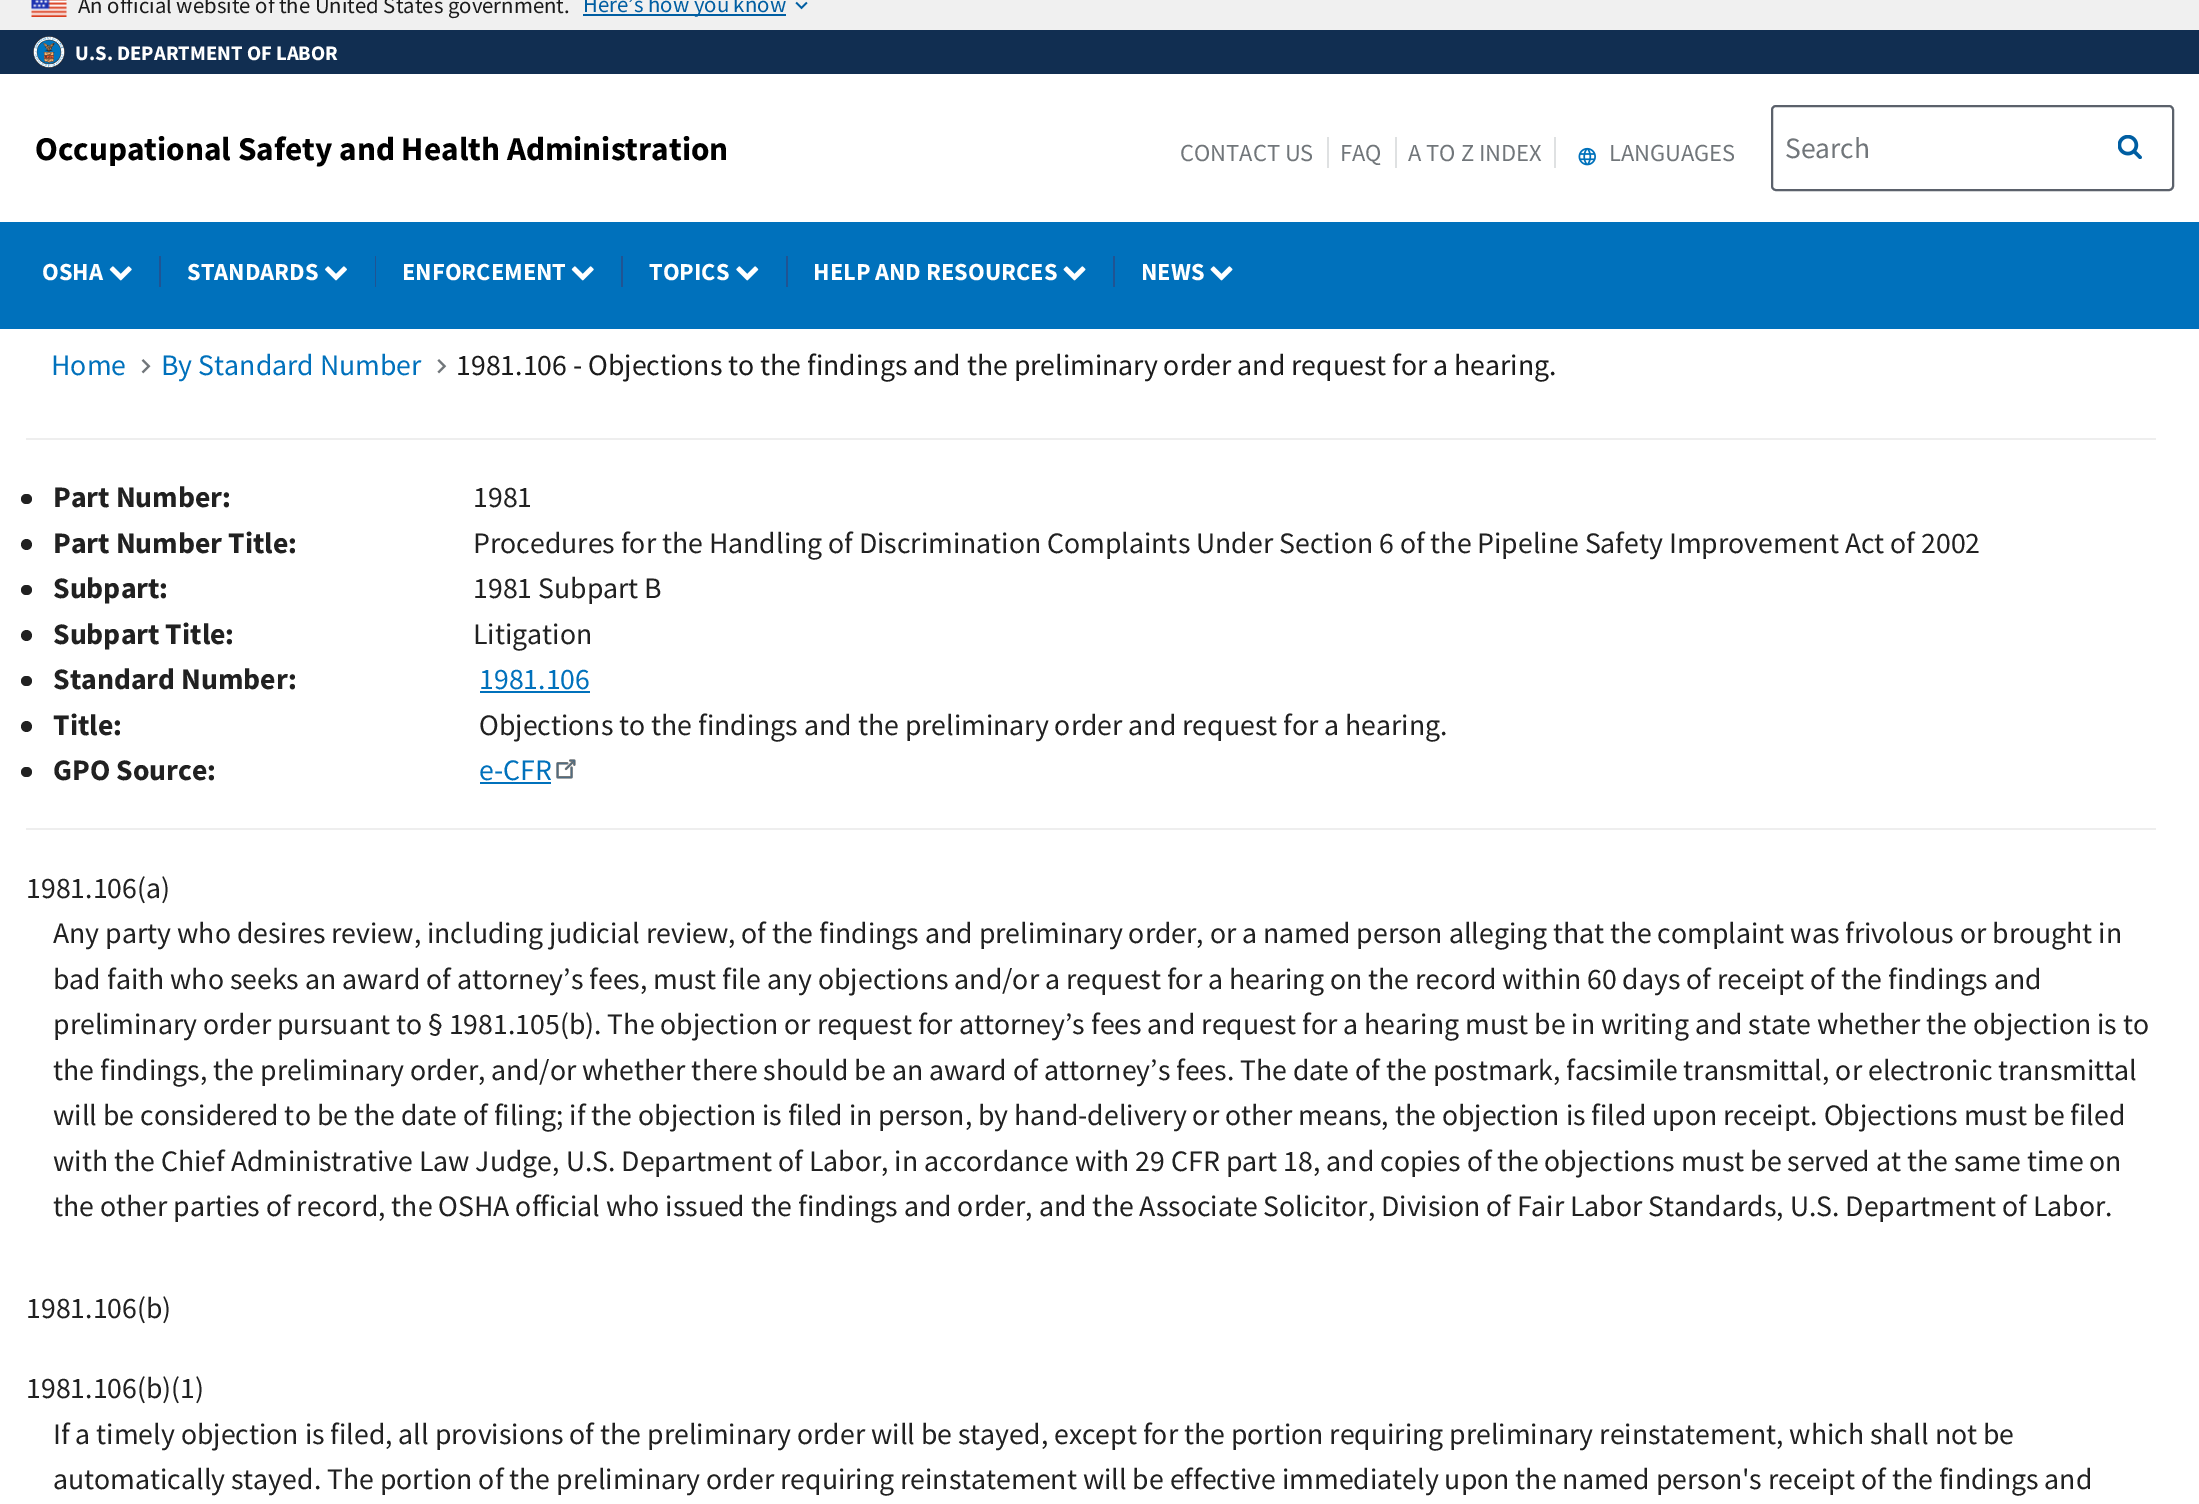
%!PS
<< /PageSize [2199 1504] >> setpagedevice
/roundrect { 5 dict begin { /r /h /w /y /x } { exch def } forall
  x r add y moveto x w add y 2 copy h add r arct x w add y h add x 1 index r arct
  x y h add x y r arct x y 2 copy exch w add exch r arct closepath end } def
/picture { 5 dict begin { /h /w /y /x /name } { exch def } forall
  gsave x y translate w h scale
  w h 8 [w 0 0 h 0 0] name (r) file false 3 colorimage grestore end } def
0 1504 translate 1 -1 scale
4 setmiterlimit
1 setgray
0 0 2199 1504 rectfill
0.941 setgray
0 0 2199 30 rectfill
(img1.rgb) 31 0 36 17 picture
/SourceSansPro-Regular [22.75 0 0 -22.75 0 0] selectfont
0.106 setgray
78 13 moveto (An official website of the United States government.) show
0 0.369 0.635 setrgbcolor
583 14 203 2 rectfill
/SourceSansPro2-Regular [22.75 0 0 -22.75 0 0] selectfont
583 12 moveto (Here’s how you know) show
(img2.rgb) 795 1 13 9 picture
0.067 0.18 0.318 setrgbcolor
0 30 2199 44 rectfill
(img3.rgb) 33 36 32 32 picture
/SourceSansPro-Bold [20.75 0 0 -20.75 0 0] selectfont
1 setgray
75 60 moveto (U.S. DEPARTMENT OF LABOR) show
/SourceSansPro2-Bold [33.3 0 0 -33.3 0 0] selectfont
0 setgray
35 160 moveto (Occupational Safety and Health Administration) show
/SourceSansPro2-Regular [24.5 0 0 -24.5 0 0] selectfont
0.443 0.463 0.478 setrgbcolor
1180 161 moveto (CONTACT US) show
0.875 0.882 0.886 setrgbcolor
1327 137 2 31 rectfill
0.443 0.463 0.478 setrgbcolor
1340 161 moveto (FAQ) show
0.875 0.882 0.886 setrgbcolor
1395 137 2 31 rectfill
0.443 0.463 0.478 setrgbcolor
1408 161 moveto (A TO Z INDEX) show
0.875 0.882 0.886 setrgbcolor
1554 137 2 31 rectfill
(img4.rgb) 1578 147 18 19 picture
0.443 0.463 0.478 setrgbcolor
1609 161 moveto (LANGUAGES) show
0.357 0.38 0.42 setrgbcolor
2 setlinewidth
1772 106 401 84 4 roundrect stroke
/SourceSansPro2-Regular [29.5 0 0 -29.5 0 0] selectfont
0.443 0.463 0.478 setrgbcolor
1785 158 moveto (Search) show
(img5.rgb) 2118 135 24 24 picture
0 0.443 0.737 setrgbcolor
0 222 2199 107 rectfill
/SourceSansPro-Bold [24.5 0 0 -24.5 0 0] selectfont
1 setgray
42 280 moveto (OSHA) show
(img6.rgb) 109 266 23 15 picture
0.125 0.329 0.576 setrgbcolor
159 256 2 31 rectfill
1 setgray
187 280 moveto (STANDARDS) show
(img7.rgb) 325 266 22 15 picture
0.125 0.329 0.576 setrgbcolor
375 256 1 31 rectfill
1 setgray
402 280 moveto (ENFORCEMENT) show
(img6.rgb) 571 266 23 15 picture
0.125 0.329 0.576 setrgbcolor
621 256 2 31 rectfill
1 setgray
649 280 moveto (TOPICS) show
(img8.rgb) 736 266 23 15 picture
0.125 0.329 0.576 setrgbcolor
786 256 2 31 rectfill
1 setgray
813 280 moveto (HELP AND RESOURCES) show
(img9.rgb) 1063 266 23 15 picture
0.125 0.329 0.576 setrgbcolor
1113 256 2 31 rectfill
1 setgray
1141 280 moveto (NEWS) show
(img9.rgb) 1210 266 23 15 picture
/SourceSansPro2-Regular [29.75 0 0 -29.75 0 0] selectfont
0 0.443 0.737 setrgbcolor
51 375 moveto (Home) show
(img10.rgb) 141 359 10 15 picture
161 375 moveto (By Standard Number) show
(img11.rgb) 437 359 10 15 picture
0.106 setgray
456 375 moveto (1981.106 - Objections to the findings and the preliminary order and request for a hearing.) show
0.933 setgray
26 438 2130 2 rectfill
26 828 2130 2 rectfill
0.129 setgray
21 494 11 10 5 roundrect fill
/SourceSansPro-Bold [29.75 0 0 -29.75 0 0] selectfont
53 507 moveto (Part Number:) show
/SourceSansPro2-Regular [29.75 0 0 -29.75 0 0] selectfont
473 507 moveto (1981) show
newpath 26.5 544.5 5.5 0 360 arc closepath fill
/SourceSansPro-Bold [29.75 0 0 -29.75 0 0] selectfont
53 553 moveto (Part Number Title:) show
/SourceSansPro2-Regular [29.75 0 0 -29.75 0 0] selectfont
473 553 moveto (Procedures for the Handling of Discrimination Complaints Under Section 6 of the Pipeline Safety Improvement Act of 2002) show
21 585 11 10 5 roundrect fill
/SourceSansPro-Bold [29.75 0 0 -29.75 0 0] selectfont
53 598 moveto (Subpart:) show
/SourceSansPro2-Regular [29.75 0 0 -29.75 0 0] selectfont
473 598 moveto (1981 Subpart B) show
newpath 26.5 635.5 5.5 0 360 arc closepath fill
/SourceSansPro-Bold [29.75 0 0 -29.75 0 0] selectfont
53 644 moveto (Subpart Title:) show
/SourceSansPro2-Regular [29.75 0 0 -29.75 0 0] selectfont
473 644 moveto (Litigation) show
21 676 11 10 5 roundrect fill
/SourceSansPro-Bold [29.75 0 0 -29.75 0 0] selectfont
53 689 moveto (Standard Number:) show
/SourceSansPro2-Regular [29.75 0 0 -29.75 0 0] selectfont
0 0.443 0.737 setrgbcolor
479 689 moveto (1981.106) show
480 691 110 2 rectfill
0.129 setgray
newpath 26.5 726.5 5.5 0 360 arc closepath fill
/SourceSansPro-Bold [29.75 0 0 -29.75 0 0] selectfont
53 735 moveto (Title:) show
/SourceSansPro2-Regular [29.75 0 0 -29.75 0 0] selectfont
479 735 moveto (Objections to the findings and the preliminary order and request for a hearing.) show
21 767 11 10 5 roundrect fill
/SourceSansPro-Bold [29.75 0 0 -29.75 0 0] selectfont
53 780 moveto (GPO Source:) show
/SourceSansPro2-Regular [29.75 0 0 -29.75 0 0] selectfont
0 0.443 0.737 setrgbcolor
479 780 moveto (e-CFR) show
480 782 71 2 rectfill
(img12.rgb) 556 759 20 20 picture
0.129 setgray
26 898 moveto (1981.106\(a\)) show
53 943 moveto (Any party who desires review, including judicial review, of the findings and preliminary order, or a named person alleging that the complaint was frivolous or brought in) show
53 989 moveto (bad faith who seeks an award of attorney’s fees, must file any objections and/or a request for a hearing on the record within 60 days of receipt of the findings and) show
53 1034 moveto (preliminary order pursuant to § 1981.105\(b\). The objection or request for attorney’s fees and request for a hearing must be in writing and state whether the objection is to) show
53 1080 moveto (the findings, the preliminary order, and/or whether there should be an award of attorney’s fees. The date of the postmark, facsimile transmittal, or electronic transmittal) show
53 1125 moveto (will be considered to be the date of filing; if the objection is filed in person, by hand-delivery or other means, the objection is filed upon receipt. Objections must be filed) show
53 1171 moveto (with the Chief Administrative Law Judge, U.S. Department of Labor, in accordance with 29 CFR part 18, and copies of the objections must be served at the same time on) show
53 1216 moveto (the other parties of record, the OSHA official who issued the findings and order, and the Associate Solicitor, Division of Fair Labor Standards, U.S. Department of Labor.) show
26 1318 moveto (1981.106\(b\)) show
26 1398 moveto (1981.106\(b\)\(1\)) show
53 1444 moveto (If a timely objection is filed, all provisions of the preliminary order will be stayed, except for the portion requiring preliminary reinstatement, which shall not be) show
53 1489 moveto (automatically stayed. The portion of the preliminary order requiring reinstatement will be effective immediately upon the named person's receipt of the findings and) show
showpage
